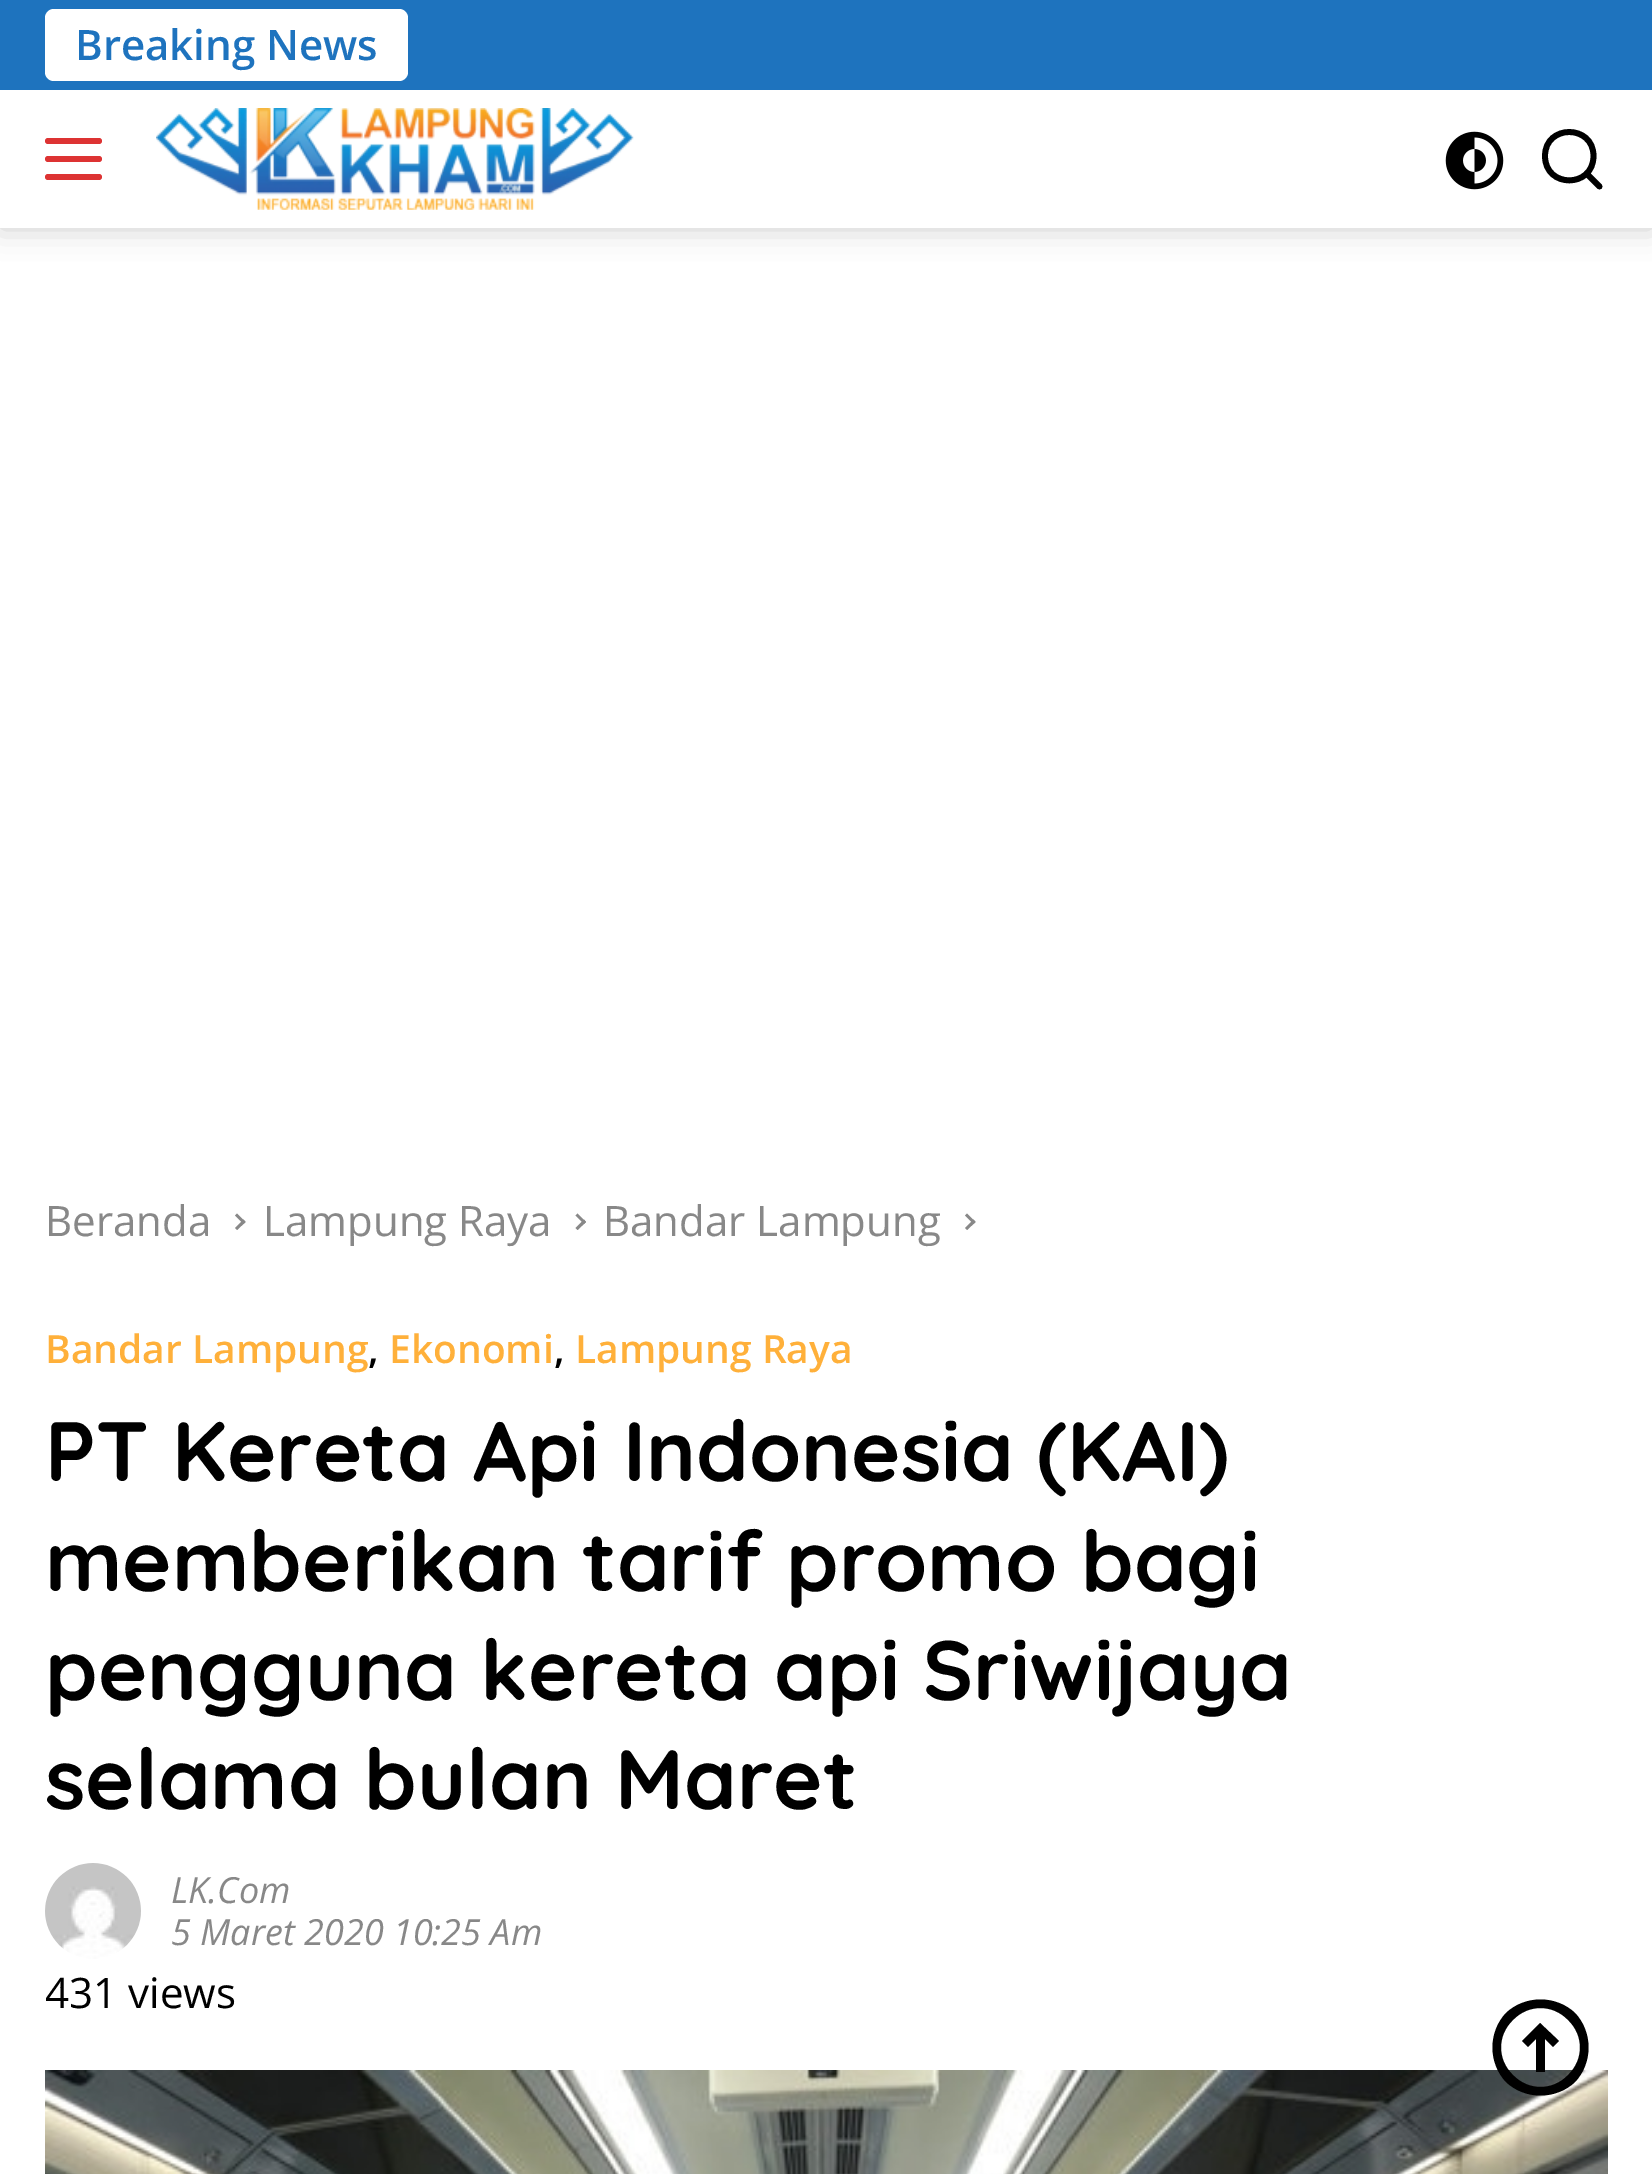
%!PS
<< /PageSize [1652 2174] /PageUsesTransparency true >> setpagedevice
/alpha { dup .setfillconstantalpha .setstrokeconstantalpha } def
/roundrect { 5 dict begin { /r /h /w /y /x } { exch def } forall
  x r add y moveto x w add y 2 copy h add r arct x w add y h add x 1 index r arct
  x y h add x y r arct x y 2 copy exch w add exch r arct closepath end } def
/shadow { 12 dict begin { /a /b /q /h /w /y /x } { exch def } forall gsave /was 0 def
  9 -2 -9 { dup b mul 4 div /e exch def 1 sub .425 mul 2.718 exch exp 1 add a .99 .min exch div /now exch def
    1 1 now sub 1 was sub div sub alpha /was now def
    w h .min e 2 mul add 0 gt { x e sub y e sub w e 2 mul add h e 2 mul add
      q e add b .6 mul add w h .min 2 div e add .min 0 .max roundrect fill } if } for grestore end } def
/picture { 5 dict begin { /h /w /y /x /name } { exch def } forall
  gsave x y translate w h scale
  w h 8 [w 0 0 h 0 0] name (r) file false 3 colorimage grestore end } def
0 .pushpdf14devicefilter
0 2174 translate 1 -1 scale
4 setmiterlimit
1 setgray
0 0 1652 2174 rectfill
0 setgray
0 0 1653 228 0 15 0.2 shadow
1 setgray
0 90 1652 138 rectfill
0.118 0.451 0.745 setrgbcolor
0 0 1652 90 rectfill
1 setgray
45 9 363 72 9 roundrect fill
/OpenSans-SemiBold [42 0 0 -42 0 0] selectfont
0.118 0.451 0.745 setrgbcolor
75 60 moveto (Breaking News) show
0.867 0.2 0.2 setrgbcolor
45 138 57 6 3 roundrect fill
45 156 57 6 3 roundrect fill
45 174 57 6 3 roundrect fill
(img1.rgb) 156 108 478 102 picture
(img2.rgb) 1445 131 59 59 picture
0 setgray
5.8 setlinewidth
1 setlinecap
newpath 1599.5 186.5 moveto 1586.5 173.5 lineto 1593.5 156 moveto 1593.5 188.5 1545 188.5 1545 156 curveto 1545 124 1593.5 124 1593.5 156 curveto closepath stroke
/OpenSans-Regular [42 0 0 -42 0 0] selectfont
0.533 setgray
45 1236 moveto (Beranda) show
newpath 235 1215.5 moveto 237 1213.5 lineto 245.5 1222 lineto 243.5 1224 lineto closepath fill
newpath 235 1228 moveto 243.5 1219.5 lineto 245.5 1222 lineto 237 1230 lineto closepath fill
263 1236 moveto (Lampung Raya) show
newpath 575.5 1215.5 moveto 577.5 1213.5 lineto 586 1222 lineto 584 1224 lineto closepath fill
newpath 575.5 1228 moveto 584 1219.5 lineto 586 1222 lineto 577.5 1230 lineto closepath fill
603 1236 moveto (Bandar Lampung) show
newpath 965 1215.5 moveto 967 1213.5 lineto 975.5 1222 lineto 973.5 1224 lineto closepath fill
newpath 965 1228 moveto 973.5 1219.5 lineto 975.5 1222 lineto 967 1230 lineto closepath fill
/OpenSans-SemiBold [39 0 0 -39 0 0] selectfont
1 0.69 0.227 setrgbcolor
45 1363 moveto (Bandar Lampung) show
0 setgray
368 1363 moveto (,) show
1 0.69 0.227 setrgbcolor
389 1363 moveto (Ekonomi) show
0 setgray
554 1363 moveto (,) show
1 0.69 0.227 setrgbcolor
575 1363 moveto (Lampung Raya) show
/Quicksand-Bold [84 0 0 -84 0 0] selectfont
0 setgray
45 1481 moveto (PT Kereta Api Indonesia \(KAI\)) show
45 1591 moveto (memberikan tarif promo bagi) show
45 1700 moveto (pengguna kereta api Sriwijaya) show
45 1809 moveto (selama bulan Maret) show
(img3.rgb) 45 1863 96 96 picture
/OpenSans-Italic [36 0 0 -36 0 0] selectfont
0.533 setgray
171 1903 moveto (LK.Com) show
171 1945 moveto (5 Maret 2020 10:25 Am) show
/OpenSans-Regular [42 0 0 -42 0 0] selectfont
0 setgray
45 2008 moveto (431 views) show
(img4.rgb) 45 2070 1563 104 picture
newpath 1553 2047 moveto 1559 2041 lineto 1540 2023 lineto 1522 2041 lineto 1528 2047 lineto 1536 2039 lineto 1536 2072 lineto 1545 2072 lineto 1545 2039 lineto closepath fill
newpath 1575 2013 moveto 1556 1995 1525 1995 1506 2013 curveto 1488 2032 1488 2063 1506 2082 curveto 1525 2100 1556 2100 1575 2082 curveto 1593 2063 1593 2032 1575 2013 curveto closepath 1568 2020 moveto 1553 2004 1528 2004 1513 2020 curveto 1497 2035 1497 2060 1513 2075 curveto 1528 2091 1553 2091 1568 2075 curveto 1584 2060 1584 2035 1568 2020 curveto closepath eofill
.poppdf14devicefilter showpage
